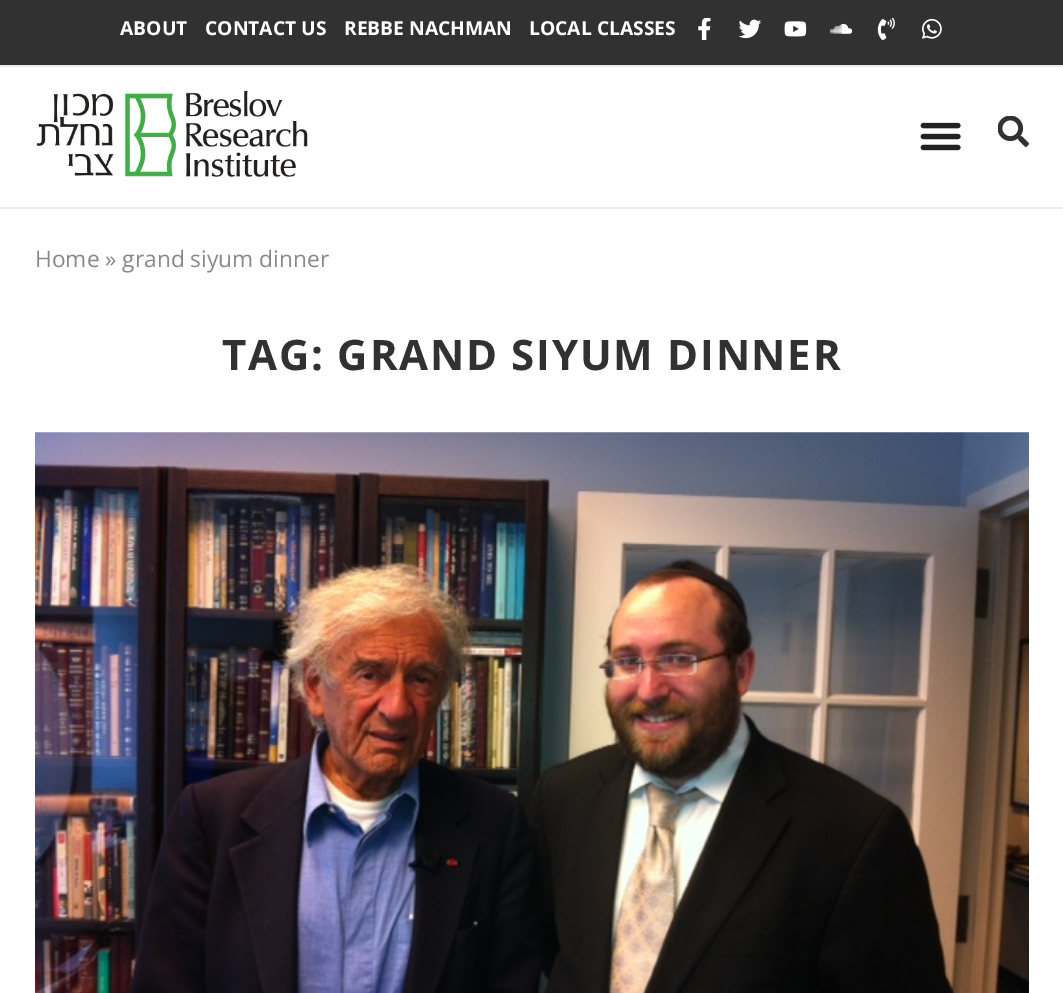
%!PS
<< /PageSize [1063 993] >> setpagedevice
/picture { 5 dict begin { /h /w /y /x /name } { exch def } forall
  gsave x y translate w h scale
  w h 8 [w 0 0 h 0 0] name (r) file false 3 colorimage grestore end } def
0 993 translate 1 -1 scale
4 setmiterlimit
1 setgray
0 0 1063 993 rectfill
0.192 setgray
0 0 1063 65 rectfill
/OpenSans-Bold [19.25 0 0 -19.25 0 0] selectfont
1 setgray
120 35 moveto (ABOUT) show
205 35 moveto (CONTACT US) show
344 35 moveto (REBBE NACHMAN) show
529 35 moveto (LOCAL CLASSES) show
(img1.rgb) 698 18 13 22 picture
(img2.rgb) 739 19 22 20 picture
(img3.rgb) 784 21 23 16 picture
(img4.rgb) 830 23 22 11 picture
(img5.rgb) 877 18 18 22 picture
(img6.rgb) 922 18 20 21 picture
0.925 setgray
0 65 1063 2 rectfill
0 207 1063 2 rectfill
(img7.rgb) 36 90 272 87 picture
(img8.rgb) 920 122 41 29 picture
(img9.rgb) 998 116 31 31 picture
/OpenSans-Regular [22.75 0 0 -22.75 0 0] selectfont
0.533 setgray
35 267 moveto (Home » grand siyum dinner) show
/OpenSans-Bold [42 0 0 -42 0 0] selectfont
0.192 setgray
222 370 moveto 1.75 0 (TAG: GRAND SIYUM DINNER) ashow
(img10.rgb) 35 432 994 561 picture
showpage
